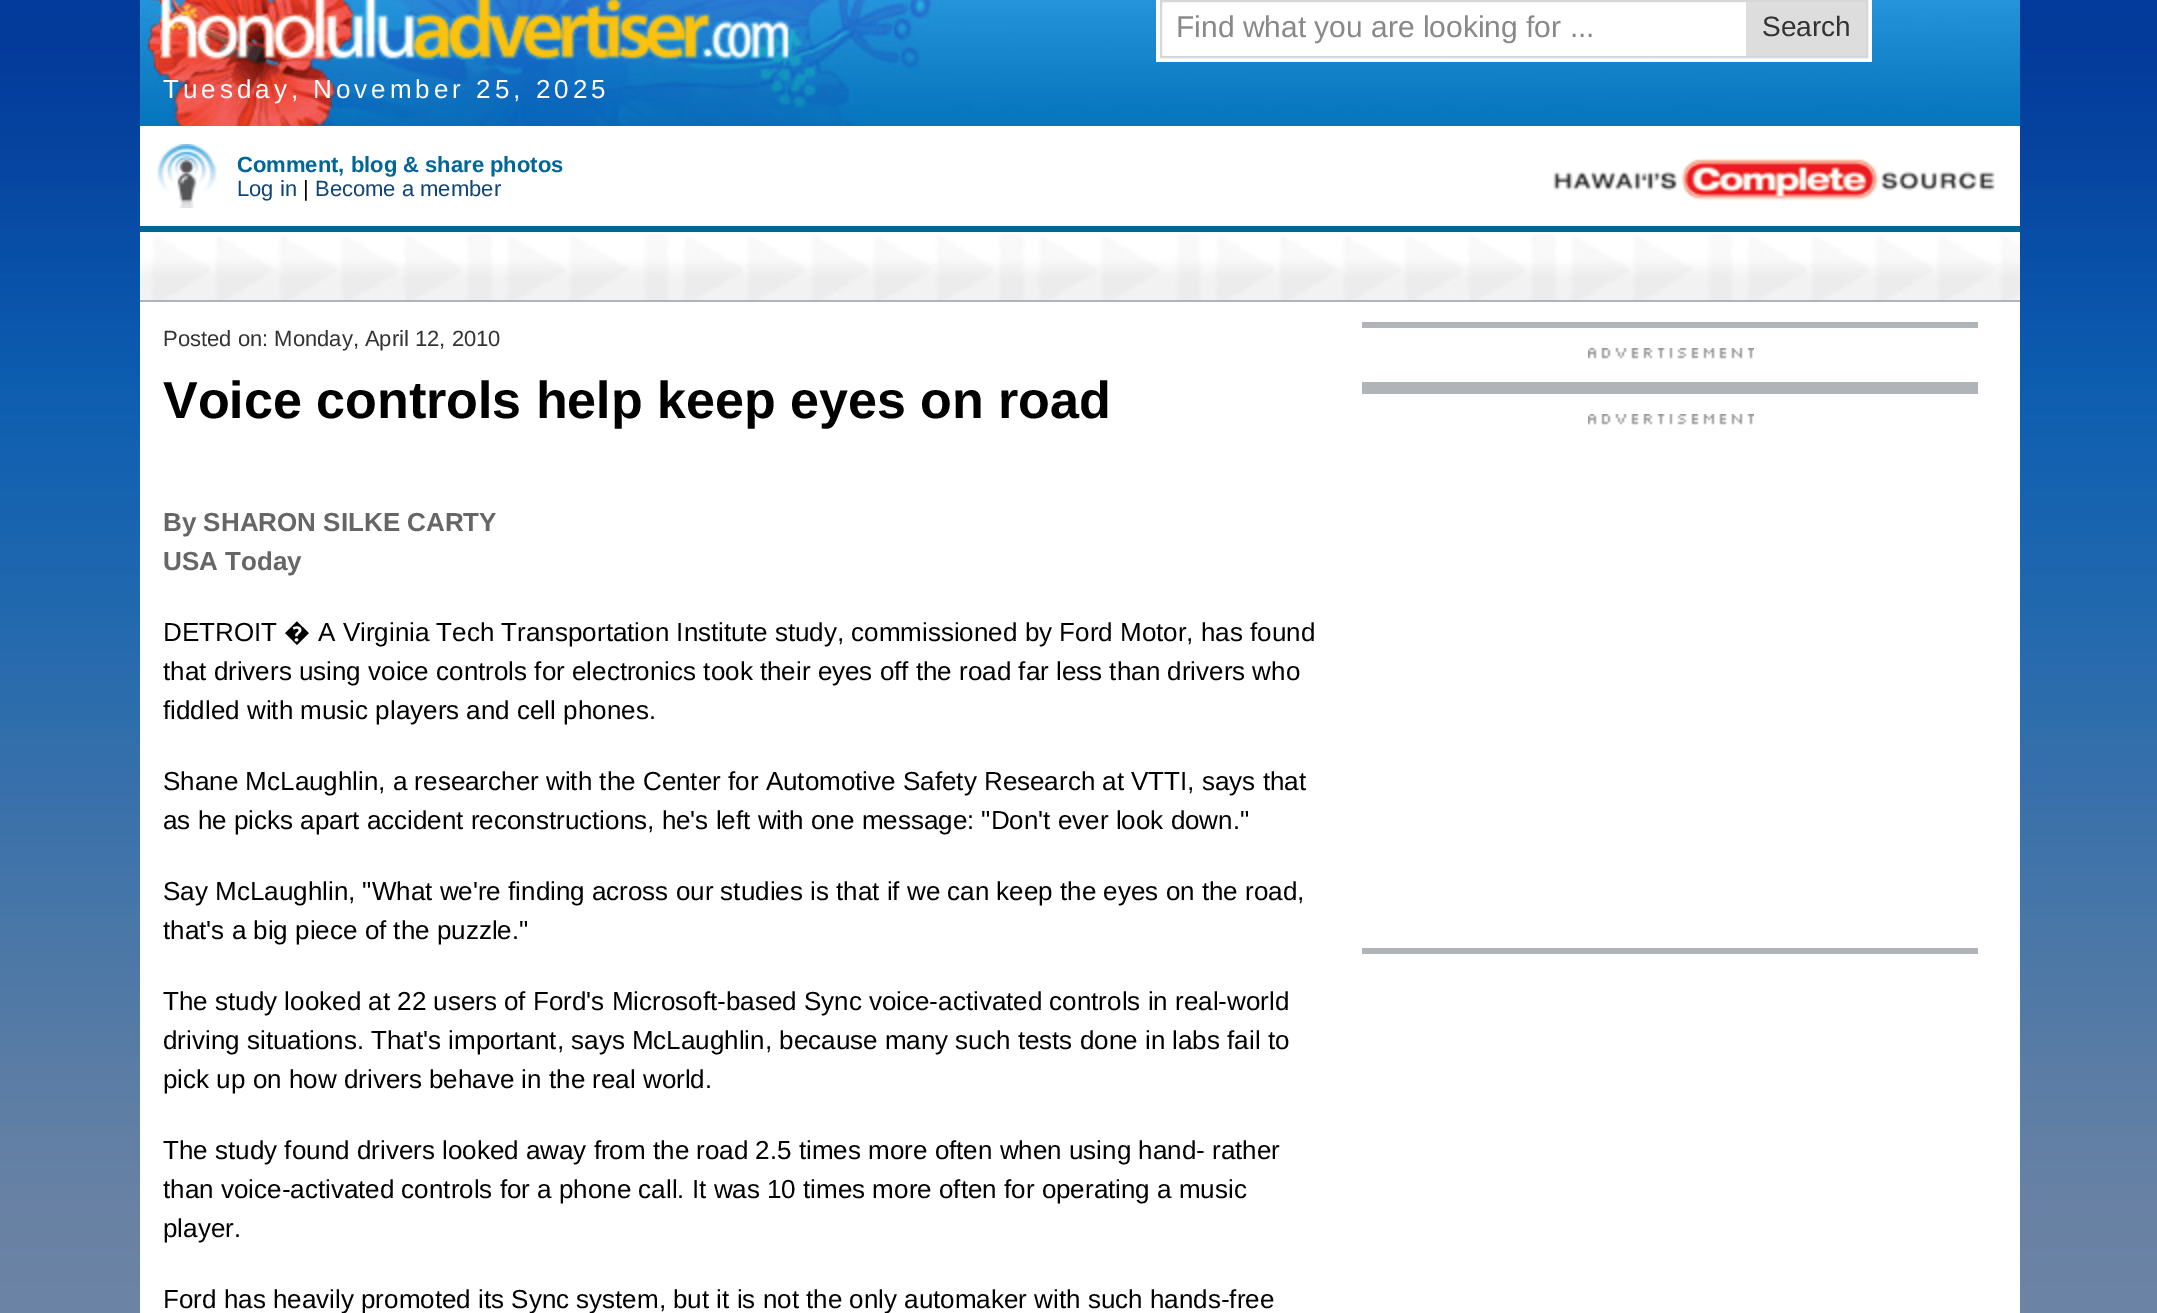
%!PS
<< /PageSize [2157 1313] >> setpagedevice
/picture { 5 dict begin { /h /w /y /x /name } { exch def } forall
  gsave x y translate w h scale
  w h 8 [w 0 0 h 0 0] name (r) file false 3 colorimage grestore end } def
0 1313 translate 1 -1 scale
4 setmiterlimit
1 setgray
0 0 2157 1313 rectfill
(img1.rgb) 0 0 2157 1313 picture
(img2.rgb) 140 0 1880 126 picture
(img3.rgb) 160 0 631 60 picture
1156 0 716 62 rectfill
0.843 setgray
2 setlinewidth
1161 1 706 56 rectstroke
/LiberationSans-Regular [30 0 0 -30 0 0] selectfont
0.537 setgray
1176 37 moveto (Find what you are looking for ...) show
0.867 setgray
1746 2 120 54 rectfill
/LiberationSans-Regular [28 0 0 -28 0 0] selectfont
0.2 setgray
1762 36 moveto (Search) show
/LiberationSans-Regular [26 0 0 -26 0 0] selectfont
1 setgray
163 98 moveto 4 0 (Tuesday, November 25, 2025) ashow
140 126 1880 100 rectfill
0 0.4 0.6 setrgbcolor
140 226 1880 6 rectfill
(img4.rgb) 157 144 60 64 picture
/LiberationSans-Bold [22 0 0 -22 0 0] selectfont
237 172 moveto (Comment, blog & share photos) show
/LiberationSans-Regular [22 0 0 -22 0 0] selectfont
0.067 0.267 0.467 setrgbcolor
237 196 moveto (Log in) show
0 setgray
303 196 moveto (|) show
0.067 0.267 0.467 setrgbcolor
315 196 moveto (Become a member) show
(img5.rgb) 1553 158 442 43 picture
(img6.rgb) 140 232 1880 68 picture
0.69 0.706 0.725 setrgbcolor
140 300 1880 2 rectfill
1 setgray
140 302 1880 1011 rectfill
0.2 setgray
163 346 moveto (Posted on: Monday, April 12, 2010) show
/LiberationSans-Bold [52 0 0 -52 0 0] selectfont
0 setgray
163 418 moveto (Voice controls help keep eyes on road) show
/LiberationSans-Bold [26 0 0 -26 0 0] selectfont
0.4 setgray
163 531 moveto (By SHARON SILKE CARTY) show
163 570 moveto (USA Today) show
/LiberationSans-Regular [26 0 0 -26 0 0] selectfont
0 setgray
163 641 moveto (DETROIT) show
/NotoSans-Regular [26 0 0 -26 0 0] selectfont
284 641 moveto (�) show
/LiberationSans-Regular [26 0 0 -26 0 0] selectfont
318 641 moveto (A Virginia Tech Transportation Institute study, commissioned by Ford Motor, has found) show
163 680 moveto (that drivers using voice controls for electronics took their eyes off the road far less than drivers who) show
163 719 moveto (fiddled with music players and cell phones.) show
163 790 moveto (Shane McLaughlin, a researcher with the Center for Automotive Safety Research at VTTI, says that) show
163 829 moveto (as he picks apart accident reconstructions, he's left with one message: "Don't ever look down.") show
163 900 moveto (Say McLaughlin, "What we're finding across our studies is that if we can keep the eyes on the road,) show
163 939 moveto (that's a big piece of the puzzle.") show
163 1010 moveto (The study looked at 22 users of Ford's Microsoft-based Sync voice-activated controls in real-world) show
163 1049 moveto (driving situations. That's important, says McLaughlin, because many such tests done in labs fail to) show
163 1088 moveto (pick up on how drivers behave in the real world.) show
163 1159 moveto (The study found drivers looked away from the road 2.5 times more often when using hand- rather) show
163 1198 moveto (than voice-activated controls for a phone call. It was 10 times more often for operating a music) show
163 1237 moveto (player.) show
163 1308 moveto (Ford has heavily promoted its Sync system, but it is not the only automaker with such hands-free) show
0.69 0.706 0.725 setrgbcolor
1362 322 616 6 rectfill
1362 382 616 12 rectfill
(img7.rgb) 1588 348 166 11 picture
1362 948 616 6 rectfill
(img7.rgb) 1588 414 166 11 picture
showpage
